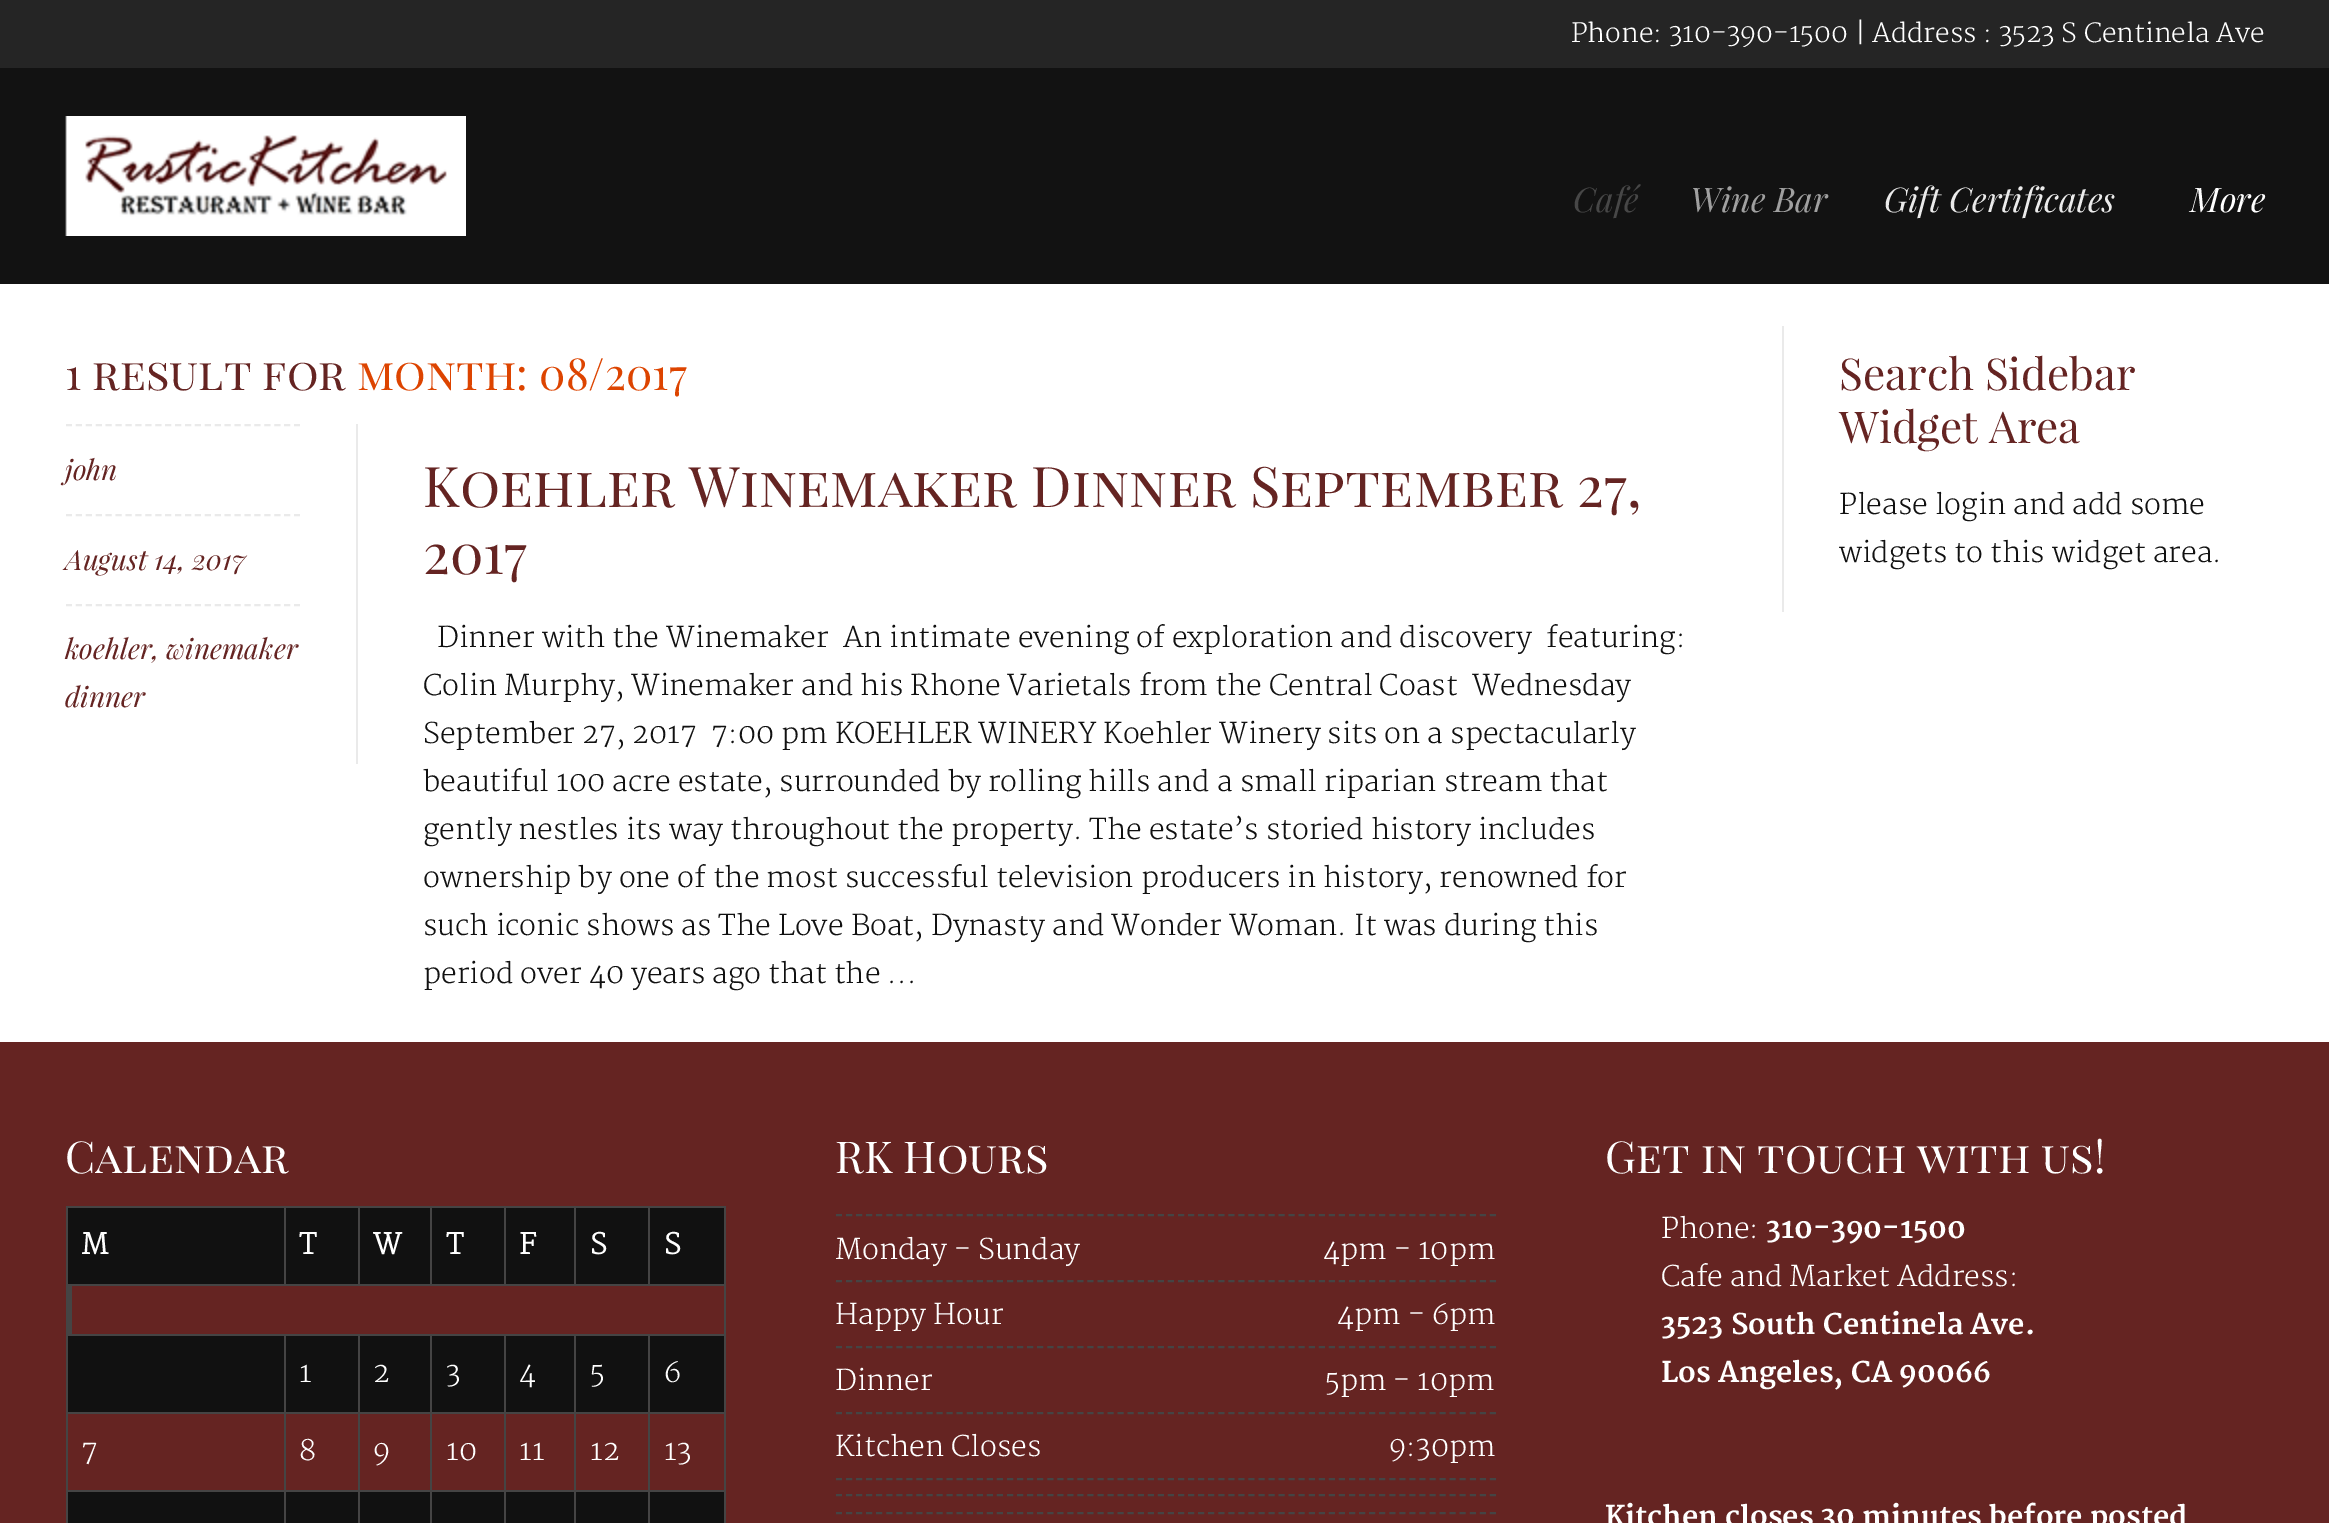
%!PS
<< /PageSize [2329 1523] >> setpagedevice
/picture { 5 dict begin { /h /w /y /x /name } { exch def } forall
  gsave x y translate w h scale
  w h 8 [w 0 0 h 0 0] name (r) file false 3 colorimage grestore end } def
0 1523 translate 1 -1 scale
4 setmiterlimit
1 setgray
0 0 2329 1523 rectfill
0.145 setgray
0 0 2329 68 rectfill
/Merriweather-Light [26 0 0 -26 0 0] selectfont
1 setgray
1571 42 moveto (Phone: 310-390-1500 | Address : 3523 S Centinela Ave) show
0.071 setgray
0 68 2329 216 rectfill
(img1.rgb) 65 116 401 120 picture
/PlayfairDisplay-Italic [34 0 0 -34 0 0] selectfont
0.278 setgray
1573 212 moveto (Café) show
0.627 setgray
1690 212 moveto (Wine Bar) show
0.922 setgray
1884 212 moveto (Gift Certificates) show
1 setgray
2190 212 moveto (More) show
/PlayfairDisplaySC-Regular [44 0 0 -44 0 0] selectfont
0.396 0.141 0.133 setrgbcolor
65 390 moveto (1 result for) show
0.867 0.267 0 setrgbcolor
357 390 moveto (month: 08/2017) show
0.918 setgray
356 424 2 340 rectfill
2 setlinewidth
[6 3.92] 0 setdash
newpath 66 425 moveto 300 425 lineto stroke
/PlayfairDisplay-Italic [28 0 0 -28 0 0] selectfont
0.396 0.141 0.133 setrgbcolor
65 480 moveto (john) show
0.918 setgray
newpath 66 515 moveto 300 515 lineto stroke
0.396 0.141 0.133 setrgbcolor
65 570 moveto (August 14, 2017) show
0.918 setgray
newpath 66 605 moveto 300 605 lineto stroke
0.396 0.141 0.133 setrgbcolor
65 659 moveto (koehler, winemaker) show
65 707 moveto (dinner) show
/PlayfairDisplaySC-Regular [56 0 0 -56 0 0] selectfont
423 507 moveto (Koehler Winemaker Dinner September 27,) show
423 574 moveto (2017) show
/Merriweather-Light [28 0 0 -28 0 0] selectfont
0.067 setgray
437 647 moveto (Dinner with the Winemaker  An intimate evening of exploration and discovery  featuring:) show
423 695 moveto (Colin Murphy, Winemaker and his Rhone Varietals from the Central Coast  Wednesday) show
423 743 moveto (September 27, 2017  7:00 pm KOEHLER WINERY Koehler Winery sits on a spectacularly) show
423 791 moveto (beautiful 100 acre estate, surrounded by rolling hills and a small riparian stream that) show
423 839 moveto (gently nestles its way throughout the property. The estate’s storied history includes) show
423 887 moveto (ownership by one of the most successful television producers in history, renowned for) show
423 935 moveto (such iconic shows as The Love Boat, Dynasty and Wonder Woman. It was during this) show
423 983 moveto (period over 40 years ago that the ...) show
0.918 setgray
1782 326 2 286 rectfill
/PlayfairDisplay-Regular [44 0 0 -44 0 0] selectfont
0.396 0.141 0.133 setrgbcolor
1839 390 moveto (Search Sidebar) show
1839 443 moveto (Widget Area) show
/Merriweather-Light [28 0 0 -28 0 0] selectfont
0.067 setgray
1839 514 moveto (Please login and add some) show
1839 562 moveto (widgets to this widget area.) show
0.396 0.141 0.133 setrgbcolor
0 1042 2329 481 rectfill
/PlayfairDisplaySC-Regular [44 0 0 -44 0 0] selectfont
1 setgray
65 1173 moveto (Calendar) show
0.271 0.267 0.267 setrgbcolor
66 1206 660 2 rectfill
724 1206 2 317 rectfill
66 1206 2 317 rectfill
0.067 setgray
68 1208 656 76 rectfill
0.271 0.267 0.267 setrgbcolor
648 1284 78 2 rectfill
648 1206 2 80 rectfill
574 1284 76 2 rectfill
574 1206 2 80 rectfill
504 1284 72 2 rectfill
504 1206 2 80 rectfill
430 1284 76 2 rectfill
430 1206 2 80 rectfill
358 1284 74 2 rectfill
358 1206 2 80 rectfill
284 1284 76 2 rectfill
284 1206 2 80 rectfill
66 1284 220 2 rectfill
/Merriweather-Bold [28 0 0 -28 0 0] selectfont
1 setgray
81 1254 moveto (M) show
299 1254 moveto (T) show
373 1254 moveto (W) show
446 1254 moveto (T) show
519 1254 moveto (F) show
590 1254 moveto (S) show
664 1254 moveto (S) show
0.271 0.267 0.267 setrgbcolor
68 1286 4 48 rectfill
0.067 setgray
68 1336 656 76 rectfill
0.271 0.267 0.267 setrgbcolor
648 1334 78 2 rectfill
648 1412 78 2 rectfill
648 1490 78 2 rectfill
0.067 setgray
68 1492 656 31 rectfill
0.271 0.267 0.267 setrgbcolor
648 1490 2 33 rectfill
574 1490 76 2 rectfill
648 1412 2 80 rectfill
574 1412 76 2 rectfill
648 1334 2 80 rectfill
574 1334 76 2 rectfill
574 1490 2 33 rectfill
504 1490 72 2 rectfill
574 1412 2 80 rectfill
504 1412 72 2 rectfill
574 1334 2 80 rectfill
504 1334 72 2 rectfill
504 1490 2 33 rectfill
430 1490 76 2 rectfill
504 1412 2 80 rectfill
430 1412 76 2 rectfill
504 1334 2 80 rectfill
430 1334 76 2 rectfill
430 1490 2 33 rectfill
358 1490 74 2 rectfill
430 1412 2 80 rectfill
358 1412 74 2 rectfill
430 1334 2 80 rectfill
358 1334 74 2 rectfill
358 1490 2 33 rectfill
284 1490 76 2 rectfill
358 1412 2 80 rectfill
284 1412 76 2 rectfill
358 1334 2 80 rectfill
284 1334 76 2 rectfill
284 1490 2 33 rectfill
66 1490 220 2 rectfill
284 1412 2 80 rectfill
66 1412 220 2 rectfill
284 1334 2 80 rectfill
66 1334 220 2 rectfill
/Merriweather-Light [28 0 0 -28 0 0] selectfont
1 setgray
299 1382 moveto (1) show
373 1382 moveto (2) show
446 1382 moveto (3) show
519 1382 moveto (4) show
590 1382 moveto (5) show
664 1382 moveto (6) show
81 1460 moveto (7) show
299 1460 moveto (8) show
373 1460 moveto (9) show
446 1460 moveto (10) show
519 1460 moveto (11) show
590 1460 moveto (12) show
664 1460 moveto (13) show
/PlayfairDisplaySC-Regular [44 0 0 -44 0 0] selectfont
835 1173 moveto (RK Hours) show
0.271 0.267 0.267 setrgbcolor
[6 4.06] 0 setdash
newpath 836 1215 moveto 1496 1215 lineto stroke
newpath 836 1281 moveto 1496 1281 lineto stroke
/Merriweather-Light [28 0 0 -28 0 0] selectfont
1 setgray
835 1259 moveto (Monday - Sunday) show
1323 1259 moveto (4pm - 10pm) show
0.271 0.267 0.267 setrgbcolor
newpath 836 1347 moveto 1496 1347 lineto stroke
1 setgray
835 1324 moveto (Happy Hour) show
1337 1324 moveto (4pm - 6pm) show
0.271 0.267 0.267 setrgbcolor
newpath 836 1413 moveto 1496 1413 lineto stroke
1 setgray
835 1390 moveto (Dinner) show
1325 1390 moveto (5pm - 10pm) show
0.271 0.267 0.267 setrgbcolor
newpath 836 1479 moveto 1496 1479 lineto stroke
1 setgray
835 1456 moveto (Kitchen Closes) show
1389 1456 moveto (9:30pm) show
0.271 0.267 0.267 setrgbcolor
newpath 836 1495 moveto 1496 1495 lineto stroke
newpath 836 1513 moveto 1496 1513 lineto stroke
/PlayfairDisplaySC-Regular [44 0 0 -44 0 0] selectfont
1 setgray
1605 1173 moveto (Get in touch with us!) show
/Merriweather-Light [28 0 0 -28 0 0] selectfont
1661 1238 moveto (Phone:) show
/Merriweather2-Bold [28 0 0 -28 0 0] selectfont
1766 1238 moveto (310-390-1500) show
/Merriweather-Light [28 0 0 -28 0 0] selectfont
1661 1286 moveto (Cafe and Market Address:) show
/Merriweather2-Bold [28 0 0 -28 0 0] selectfont
1661 1334 moveto (3523 South Centinela Ave.) show
1661 1382 moveto (Los Angeles, CA 90066) show
1605 1526 moveto (Kitchen closes 30 minutes before posted) show
showpage
